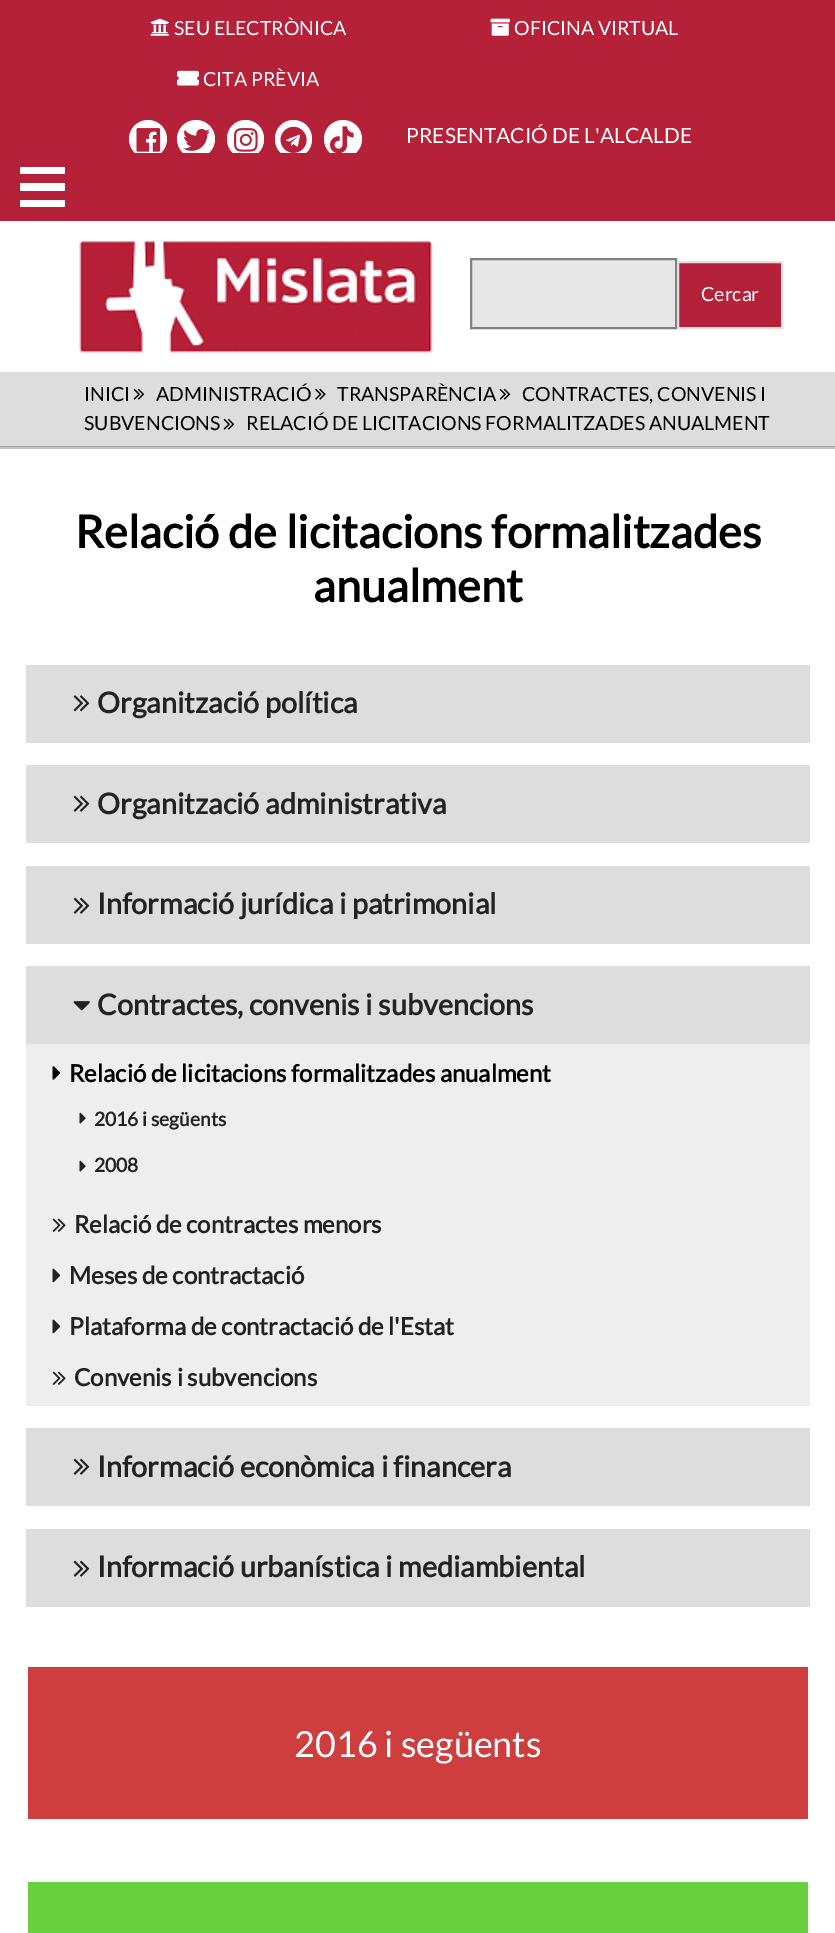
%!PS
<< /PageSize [835 1933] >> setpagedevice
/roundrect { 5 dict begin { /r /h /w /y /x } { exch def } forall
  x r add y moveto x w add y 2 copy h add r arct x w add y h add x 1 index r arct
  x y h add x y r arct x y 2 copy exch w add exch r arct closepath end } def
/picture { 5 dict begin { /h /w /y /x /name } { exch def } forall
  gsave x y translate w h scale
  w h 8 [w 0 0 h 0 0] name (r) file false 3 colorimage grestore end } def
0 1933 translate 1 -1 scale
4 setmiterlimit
1 setgray
0 0 835 1933 rectfill
0.639 setgray
0 446 835 1 rectfill
0.706 0.129 0.224 setrgbcolor
0 0 835 153 rectfill
(img1.rgb) 150 18 19 18 picture
/Lato-Regular [19.5 0 0 -19.5 0 0] selectfont
1 setgray
174 35 moveto (SEU ELECTRÒNICA) show
(img2.rgb) 490 18 20 18 picture
514 35 moveto (OFICINA VIRTUAL) show
(img3.rgb) 177 70 22 16 picture
203 86 moveto (CITA PRÈVIA) show
newpath 148 139 19 0 360 arc closepath fill
(img4.rgb) 136 128 25 24 picture
newpath 196 139 19 0 360 arc closepath fill
(img5.rgb) 183 128 27 23 picture
227 120 37 38 18.5 roundrect fill
(img6.rgb) 234 128 24 24 picture
275 120 37 38 18.5 roundrect fill
(img7.rgb) 280 126 27 27 picture
newpath 343 139 19 0 360 arc closepath fill
(img8.rgb) 330 126 24 27 picture
/Lato-Regular [21 0 0 -21 0 0] selectfont
406 143 moveto (PRESENTACIÓ DE L'ALCALDE) show
0.706 0.129 0.224 setrgbcolor
0 153 835 68 rectfill
1 setgray
20 167 45 7 1.5 roundrect fill
20 183 45 8 1.5 roundrect fill
20 200 45 7 1.5 roundrect fill
(img9.rgb) 79 241 354 112 picture
0.906 setgray
newpath 471 259 moveto 676 259 lineto 676 328 lineto 471 328 lineto closepath gsave fill grestore
0.502 setgray
2 setlinewidth
stroke
0.706 0.129 0.224 setrgbcolor
newpath 678 262 moveto 782 262 lineto 782 328 lineto 678 328 lineto closepath gsave fill grestore
0.878 setgray
stroke
/Lato-Regular [19.5 0 0 -19.5 0 0] selectfont
1 setgray
701 301 moveto (Cercar) show
0.867 setgray
0 372 835 74 rectfill
(img10.rgb) 133 388 12 12 picture
0 setgray
156 401 moveto (ADMINISTRACIÓ) show
(img11.rgb) 315 388 11 12 picture
337 401 moveto (TRANSPARÈNCIA) show
(img10.rgb) 499 388 12 12 picture
522 401 moveto (CONTRACTES, CONVENIS I) show
84 430 moveto (SUBVENCIONS) show
84 401 moveto (INICI) show
(img10.rgb) 223 418 12 12 picture
246 430 moveto (RELACIÓ DE LICITACIONS FORMALITZADES ANUALMENT) show
0.765 setgray
0 447 835 2 rectfill
/Lato-Bold [45 0 0 -45 0 0] selectfont
0 setgray
75 548 moveto (Relació de licitacions formalitzades) show
313 602 moveto (anualment) show
0.867 setgray
26 665 784 78 rectfill
(img12.rgb) 73 695 17 17 picture
/Lato-Bold [28.75 0 0 -28.75 0 0] selectfont
0.133 setgray
97 713 moveto (Organització política) show
0.867 setgray
26 765 784 78 rectfill
(img13.rgb) 73 795 17 17 picture
0.133 setgray
97 814 moveto (Organització administrativa) show
0.867 setgray
26 866 784 78 rectfill
(img13.rgb) 73 897 17 17 picture
0.133 setgray
97 914 moveto (Informació jurídica i patrimonial) show
0.933 setgray
26 1044 784 362 rectfill
0.867 setgray
26 966 784 78 rectfill
(img14.rgb) 73 1001 17 10 picture
0.133 setgray
97 1015 moveto (Contractes, convenis i subvencions) show
(img15.rgb) 52 1066 9 14 picture
/Lato-Bold [24 0 0 -24 0 0] selectfont
0 setgray
69 1082 moveto (Relació de licitacions formalitzades anualment) show
(img16.rgb) 79 1112 7 12 picture
/Lato-Bold [19.25 0 0 -19.25 0 0] selectfont
0.133 setgray
94 1126 moveto (2016 i següents) show
(img16.rgb) 79 1160 7 12 picture
94 1172 moveto (2008) show
(img17.rgb) 52 1218 14 14 picture
/Lato-Bold [24 0 0 -24 0 0] selectfont
74 1233 moveto (Relació de contractes menors) show
(img18.rgb) 52 1268 9 15 picture
69 1284 moveto (Meses de contractació) show
(img18.rgb) 52 1319 9 15 picture
69 1335 moveto (Plataforma de contractació de l'Estat) show
(img17.rgb) 52 1371 14 14 picture
74 1386 moveto (Convenis i subvencions) show
0.867 setgray
26 1428 784 78 rectfill
(img13.rgb) 73 1458 17 17 picture
/Lato-Bold [28.75 0 0 -28.75 0 0] selectfont
0.133 setgray
97 1477 moveto (Informació econòmica i financera) show
0.867 setgray
26 1529 784 78 rectfill
(img13.rgb) 73 1560 17 17 picture
0.133 setgray
97 1577 moveto (Informació urbanística i mediambiental) show
0.812 0.243 0.243 setrgbcolor
28 1667 780 152 rectfill
/Lato-Regular [36 0 0 -36 0 0] selectfont
1 setgray
294 1757 moveto (2016 i següents) show
0.408 0.812 0.243 setrgbcolor
28 1882 780 51 rectfill
showpage
